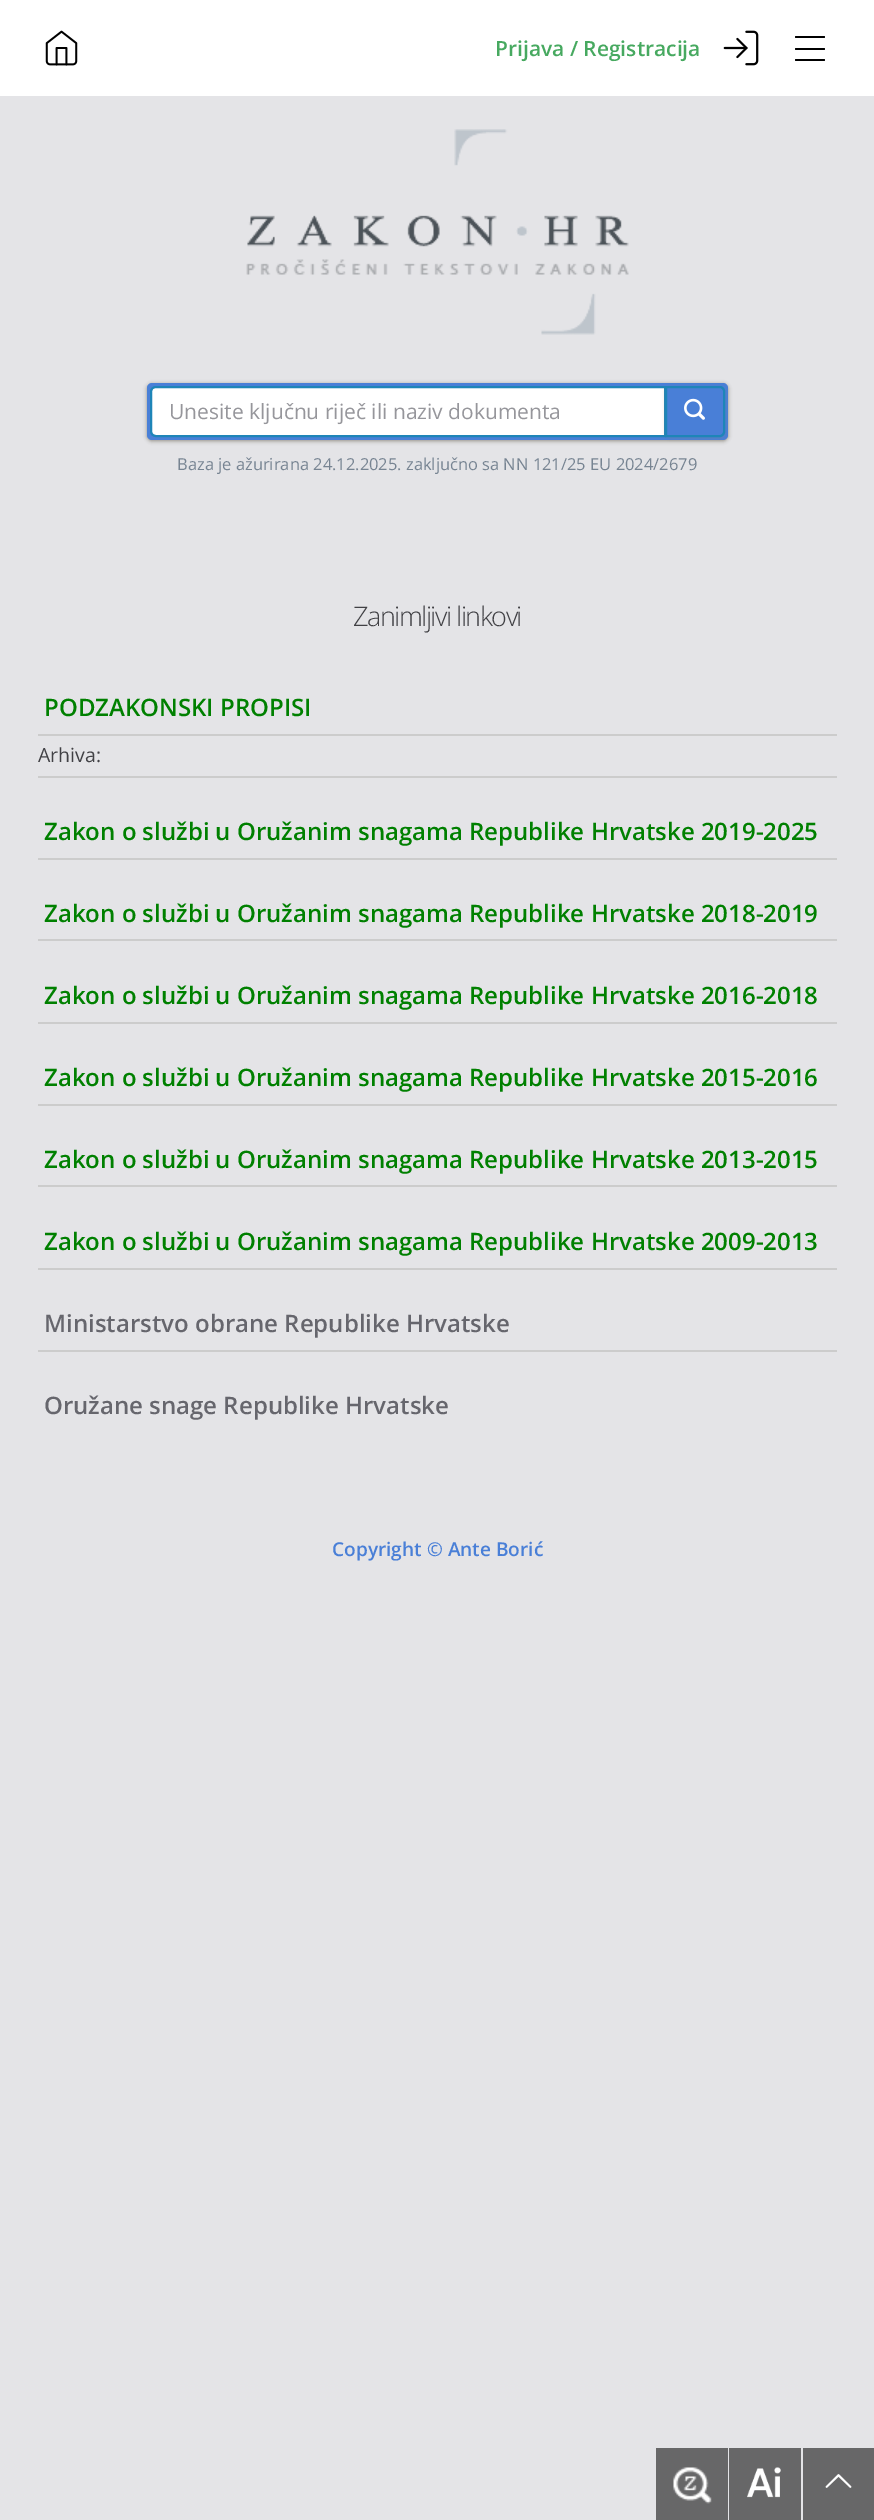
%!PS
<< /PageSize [874 2520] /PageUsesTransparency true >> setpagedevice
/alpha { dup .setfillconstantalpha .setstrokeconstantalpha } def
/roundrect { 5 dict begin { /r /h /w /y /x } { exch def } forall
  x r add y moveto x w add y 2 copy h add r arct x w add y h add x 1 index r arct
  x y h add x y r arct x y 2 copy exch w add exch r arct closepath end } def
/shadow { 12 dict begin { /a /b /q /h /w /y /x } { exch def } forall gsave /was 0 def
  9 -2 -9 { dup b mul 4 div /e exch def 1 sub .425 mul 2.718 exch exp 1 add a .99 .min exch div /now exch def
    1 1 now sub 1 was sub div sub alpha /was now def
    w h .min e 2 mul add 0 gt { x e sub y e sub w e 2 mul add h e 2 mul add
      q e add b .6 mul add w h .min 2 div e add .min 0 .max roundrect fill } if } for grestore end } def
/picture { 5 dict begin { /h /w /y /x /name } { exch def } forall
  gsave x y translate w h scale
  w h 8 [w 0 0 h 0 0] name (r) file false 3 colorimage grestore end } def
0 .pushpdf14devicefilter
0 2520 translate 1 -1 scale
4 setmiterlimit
0.894 0.894 0.906 setrgbcolor
0 0 874 2520 rectfill
1 setgray
0 0 874 96 rectfill
(img1.rgb) 45 30 33 36 picture
/OpenSans-SemiBold [21 0 0 -21 0 0] selectfont
0.278 0.663 0.376 setrgbcolor
495 56 moveto (Prijava / Registracija) show
(img2.rgb) 723 30 36 36 picture
0 setgray
795 36 30 2 1 roundrect fill
795 48 30 2 1 roundrect fill
795 59 30 2 1 roundrect fill
(img3.rgb) 246 129 383 206 picture
0.498 0.475 0.424 setrgbcolor
147 384 581 57 5 2 0.8 shadow
0.286 0.498 0.843 setrgbcolor
147 383 581 57 5 roundrect fill
1 setgray
newpath 156 387 moveto 665 387 lineto 665 436 lineto 156 436 lineto 153 436 151 434 151 431 curveto 151 392 lineto 151 389 153 387 156 387 curveto closepath gsave fill grestore
0.118 0.522 0.722 setrgbcolor
2 setlinewidth
stroke
/OpenSans-Regular [21 0 0 -21 0 0] selectfont
0.588 0.588 0.608 setrgbcolor
169 419 moveto (Unesite ključnu riječ ili naziv dokumenta) show
0.498 0.475 0.424 setrgbcolor
665 387 60 51 5 2 0.3 shadow
0.286 0.498 0.843 setrgbcolor
newpath 666 387 moveto 720 387 lineto 722 387 724 389 724 391 curveto 724 432 lineto 724 434 722 436 720 436 curveto 666 436 lineto closepath gsave fill grestore
0.118 0.522 0.722 setrgbcolor
stroke
(img4.rgb) 684 398 21 22 picture
/OpenSans-Regular [16.5 0 0 -16.5 0 0] selectfont
0.467 0.518 0.573 setrgbcolor
177 470 moveto (Baza je ažurirana 24.12.2025. zaključno sa NN 121/25 EU 2024/2679) show
/OpenSans-Light [27 0 0 -27 0 0] selectfont
0.255 0.255 0.271 setrgbcolor
353 626 moveto -1.5 0 (Zanimljivi linkovi) ashow
0.8 setgray
38 734 799 2 rectfill
/OpenSans-SemiBold [24 0 0 -24 0 0] selectfont
0 0.502 0 setrgbcolor
44 716 moveto (PODZAKONSKI PROPISI) show
/OpenSans-Regular [19.5 0 0 -19.5 0 0] selectfont
0.255 0.255 0.271 setrgbcolor
38 762 moveto (Arhiva:) show
0.8 setgray
38 776 799 2 rectfill
38 858 799 2 rectfill
/OpenSans-SemiBold [24 0 0 -24 0 0] selectfont
0 0.502 0 setrgbcolor
44 840 moveto (Zakon o službi u Oružanim snagama Republike Hrvatske 2019-2025) show
44 922 moveto (Zakon o službi u Oružanim snagama Republike Hrvatske 2018-2019) show
0.8 setgray
38 939 799 2 rectfill
38 1022 799 2 rectfill
0 0.502 0 setrgbcolor
44 1004 moveto (Zakon o službi u Oružanim snagama Republike Hrvatske 2016-2018) show
44 1086 moveto (Zakon o službi u Oružanim snagama Republike Hrvatske 2015-2016) show
0.8 setgray
38 1104 799 2 rectfill
38 1185 799 2 rectfill
0 0.502 0 setrgbcolor
44 1168 moveto (Zakon o službi u Oružanim snagama Republike Hrvatske 2013-2015) show
44 1250 moveto (Zakon o službi u Oružanim snagama Republike Hrvatske 2009-2013) show
0.8 setgray
38 1268 799 2 rectfill
38 1350 799 2 rectfill
0.4 0.4 0.427 setrgbcolor
44 1332 moveto (Ministarstvo obrane Republike Hrvatske) show
44 1414 moveto (Oružane snage Republike Hrvatske) show
/OpenSans-SemiBold [19.1 0 0 -19.1 0 0] selectfont
0.286 0.498 0.843 setrgbcolor
332 1556 moveto (Copyright © Ante Borić) show
0.404 0.404 0.408 setrgbcolor
656 2448 72 72 rectfill
(img5.rgb) 673 2467 39 37 picture
729 2448 72 72 rectfill
(img6.rgb) 747 2467 34 31 picture
803 2448 71 72 rectfill
(img7.rgb) 825 2474 27 14 picture
.poppdf14devicefilter showpage
